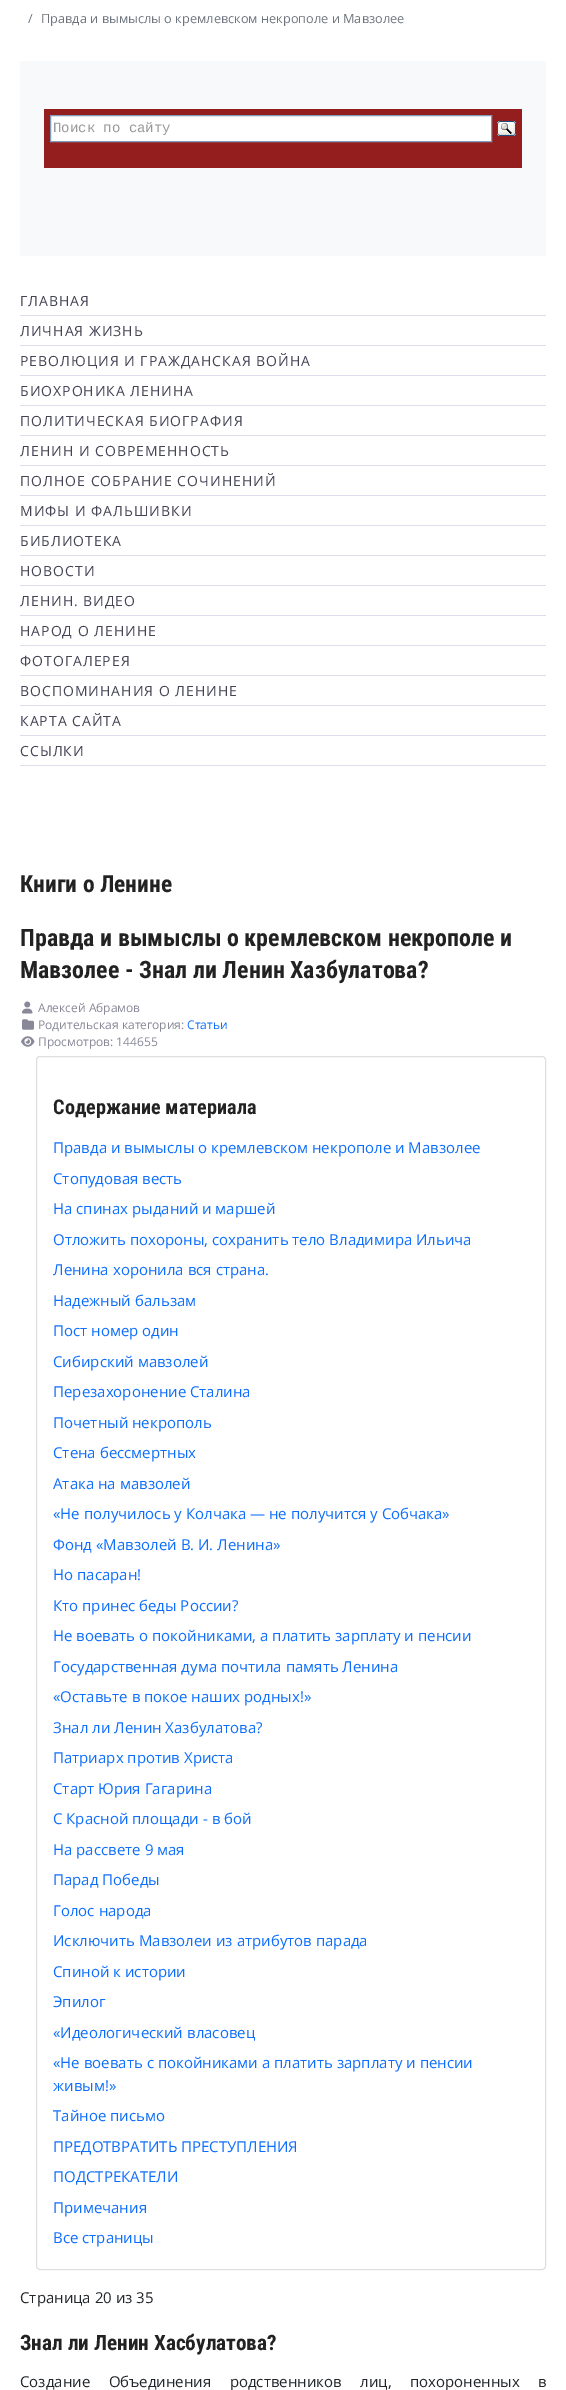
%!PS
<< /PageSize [566 2390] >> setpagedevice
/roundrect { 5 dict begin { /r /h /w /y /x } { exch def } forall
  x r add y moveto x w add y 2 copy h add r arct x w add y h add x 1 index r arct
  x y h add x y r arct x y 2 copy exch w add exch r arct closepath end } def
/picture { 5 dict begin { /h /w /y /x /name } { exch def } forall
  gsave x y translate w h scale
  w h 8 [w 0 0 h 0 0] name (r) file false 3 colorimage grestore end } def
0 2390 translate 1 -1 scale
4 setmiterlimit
1 setgray
0 0 566 2390 rectfill
/OpenSans-Regular [12.75 0 0 -12.75 0 0] selectfont
0.424 0.459 0.49 setrgbcolor
28 23 moveto (/) show
41 23 moveto (Правда и вымыслы о кремлевском некрополе и Мавзолее) show
0.973 0.976 0.98 setrgbcolor
20 61 526 195 rectfill
0.58 0.118 0.118 setrgbcolor
44 109 478 59 rectfill
1 setgray
newpath 50.5 115.5 moveto 491.5 115.5 lineto 491.5 141.5 lineto 50.5 141.5 lineto closepath gsave fill grestore
0.498 0.616 0.725 setrgbcolor
stroke
/LiberationMono-Regular [14 0 0 -14 0 0] selectfont
0.6 setgray
53 132 moveto (Поиск по сайту) show
(img1.rgb) 497 121 19 15 picture
0.867 0.867 0.933 setrgbcolor
20 315 526 1 rectfill
/OpenSans-Regular [14 0 0 -14 0 0] selectfont
0.267 0.267 0.333 setrgbcolor
20 306 moveto 1 0 (ГЛАВНАЯ) ashow
0.867 0.867 0.933 setrgbcolor
20 345 526 1 rectfill
0.267 0.267 0.333 setrgbcolor
20 336 moveto 1 0 (ЛИЧНАЯ ЖИЗНЬ) ashow
0.867 0.867 0.933 setrgbcolor
20 375 526 1 rectfill
0.267 0.267 0.333 setrgbcolor
20 366 moveto 1 0 (РЕВОЛЮЦИЯ И ГРАЖДАНСКАЯ ВОЙНА) ashow
0.867 0.867 0.933 setrgbcolor
20 405 526 1 rectfill
0.267 0.267 0.333 setrgbcolor
20 396 moveto 1 0 (БИОХРОНИКА ЛЕНИНА) ashow
0.867 0.867 0.933 setrgbcolor
20 435 526 1 rectfill
0.267 0.267 0.333 setrgbcolor
20 426 moveto 1 0 (ПОЛИТИЧЕСКАЯ БИОГРАФИЯ) ashow
0.867 0.867 0.933 setrgbcolor
20 465 526 1 rectfill
0.267 0.267 0.333 setrgbcolor
20 456 moveto 1 0 (ЛЕНИН И СОВРЕМЕННОСТЬ) ashow
0.867 0.867 0.933 setrgbcolor
20 495 526 1 rectfill
0.267 0.267 0.333 setrgbcolor
20 486 moveto 1 0 (ПОЛНОЕ СОБРАНИЕ СОЧИНЕНИЙ) ashow
0.867 0.867 0.933 setrgbcolor
20 525 526 1 rectfill
0.267 0.267 0.333 setrgbcolor
20 516 moveto 1 0 (МИФЫ И ФАЛЬШИВКИ) ashow
0.867 0.867 0.933 setrgbcolor
20 555 526 1 rectfill
0.267 0.267 0.333 setrgbcolor
20 546 moveto 1 0 (БИБЛИОТЕКА) ashow
0.867 0.867 0.933 setrgbcolor
20 585 526 1 rectfill
0.267 0.267 0.333 setrgbcolor
20 576 moveto 1 0 (НОВОСТИ) ashow
0.867 0.867 0.933 setrgbcolor
20 615 526 1 rectfill
0.267 0.267 0.333 setrgbcolor
20 606 moveto 1 0 (ЛЕНИН. ВИДЕО) ashow
0.867 0.867 0.933 setrgbcolor
20 645 526 1 rectfill
0.267 0.267 0.333 setrgbcolor
20 636 moveto 1 0 (НАРОД О ЛЕНИНЕ) ashow
0.867 0.867 0.933 setrgbcolor
20 675 526 1 rectfill
0.267 0.267 0.333 setrgbcolor
20 666 moveto 1 0 (ФОТОГАЛЕРЕЯ) ashow
0.867 0.867 0.933 setrgbcolor
20 705 526 1 rectfill
0.267 0.267 0.333 setrgbcolor
20 696 moveto 1 0 (ВОСПОМИНАНИЯ О ЛЕНИНЕ) ashow
0.867 0.867 0.933 setrgbcolor
20 735 526 1 rectfill
0.267 0.267 0.333 setrgbcolor
20 726 moveto 1 0 (КАРТА САЙТА) ashow
0.867 0.867 0.933 setrgbcolor
20 765 526 1 rectfill
0.267 0.267 0.333 setrgbcolor
20 756 moveto 1 0 (ССЫЛКИ) ashow
/RobotoCondensed-Bold [23.5 0 0 -23.5 0 0] selectfont
0.133 setgray
20 892 moveto (Книги о Ленине) show
/RobotoCondensed-Bold [24 0 0 -24 0 0] selectfont
20 946 moveto (Правда и вымыслы о кремлевском некрополе и) show
20 978 moveto (Мавзолее - Знал ли Ленин Хазбулатова?) show
(img2.rgb) 22 1001 11 13 picture
/OpenSans-Regular [12 0 0 -12 0 0] selectfont
0.533 0.533 0.6 setrgbcolor
38 1012 moveto (Алексей Абрамов) show
(img3.rgb) 22 1019 12 11 picture
38 1029 moveto (Родительская категория:) show
0.051 0.431 0.992 setrgbcolor
187 1029 moveto (Статьи) show
(img4.rgb) 21 1036 14 11 picture
0.533 0.533 0.6 setrgbcolor
38 1046 moveto (Просмотров: 144655) show
0.875 setgray
36.5 1056.5 509 1213 3.5 roundrect stroke
/RobotoCondensed-Bold [20.25 0 0 -20.25 0 0] selectfont
0.133 setgray
53 1114 moveto (Содержание материала) show
/OpenSans-Regular [15 0 0 -15 0 0] selectfont
0.051 0.431 0.992 setrgbcolor
53 1153 moveto (Правда и вымыслы о кремлевском некрополе и Мавзолее) show
53 1184 moveto (Стопудовая весть) show
53 1214 moveto (На спинах рыданий и маршей) show
53 1245 moveto (Отложить похороны, сохранить тело Владимира Ильича) show
53 1275 moveto (Ленина хоронила вся страна.) show
53 1306 moveto (Надежный бальзам) show
53 1336 moveto (Пост номер один) show
53 1367 moveto (Сибирский мавзолей) show
53 1397 moveto (Перезахоронение Сталина) show
53 1428 moveto (Почетный некрополь) show
53 1458 moveto (Стена бессмертных) show
53 1489 moveto (Атака на мавзолей) show
53 1519 moveto («Не получилось у Колчака — не получится у Собчака») show
53 1550 moveto (Фонд «Мавзолей В. И. Ленина») show
53 1580 moveto (Но пасаран!) show
53 1611 moveto (Кто принес беды России?) show
53 1641 moveto (Не воевать о покойниками, а платить зарплату и пенсии) show
53 1672 moveto (Государственная дума почтила память Ленина) show
53 1702 moveto («Оставьте в покое наших родных!») show
53 1733 moveto (Знал ли Ленин Хазбулатова?) show
53 1763 moveto (Патриарх против Христа) show
53 1794 moveto (Старт Юрия Гагарина) show
53 1824 moveto (С Красной площади - в бой) show
53 1855 moveto (На рассвете 9 мая) show
53 1885 moveto (Парад Победы) show
53 1916 moveto (Голос народа) show
53 1946 moveto (Исключить Мавзолеи из атрибутов парада) show
53 1977 moveto (Спиной к истории) show
53 2007 moveto (Эпилог) show
53 2038 moveto («Идеологический власовец) show
53 2068 moveto («Не воевать с покойниками а платить зарплату и пенсии) show
53 2091 moveto (живым!») show
53 2121 moveto (Тайное письмо) show
53 2152 moveto (ПРЕДОТВРАТИТЬ ПРЕСТУПЛЕНИЯ) show
53 2182 moveto (ПОДСТРЕКАТЕЛИ) show
53 2213 moveto (Примечания) show
53 2243 moveto (Все страницы) show
0.129 0.145 0.161 setrgbcolor
20 2303 moveto (Страница 20 из 35) show
/RobotoCondensed-Bold [21.25 0 0 -21.25 0 0] selectfont
0.133 setgray
20 2350 moveto (Знал ли Ленин Хасбулатова?) show
/OpenSans-Regular [15 0 0 -15 0 0] selectfont
0.129 0.145 0.161 setrgbcolor
20 2387 moveto 14.5 0 32 (Создание Объединения родственников лиц, похороненных в) widthshow
showpage
